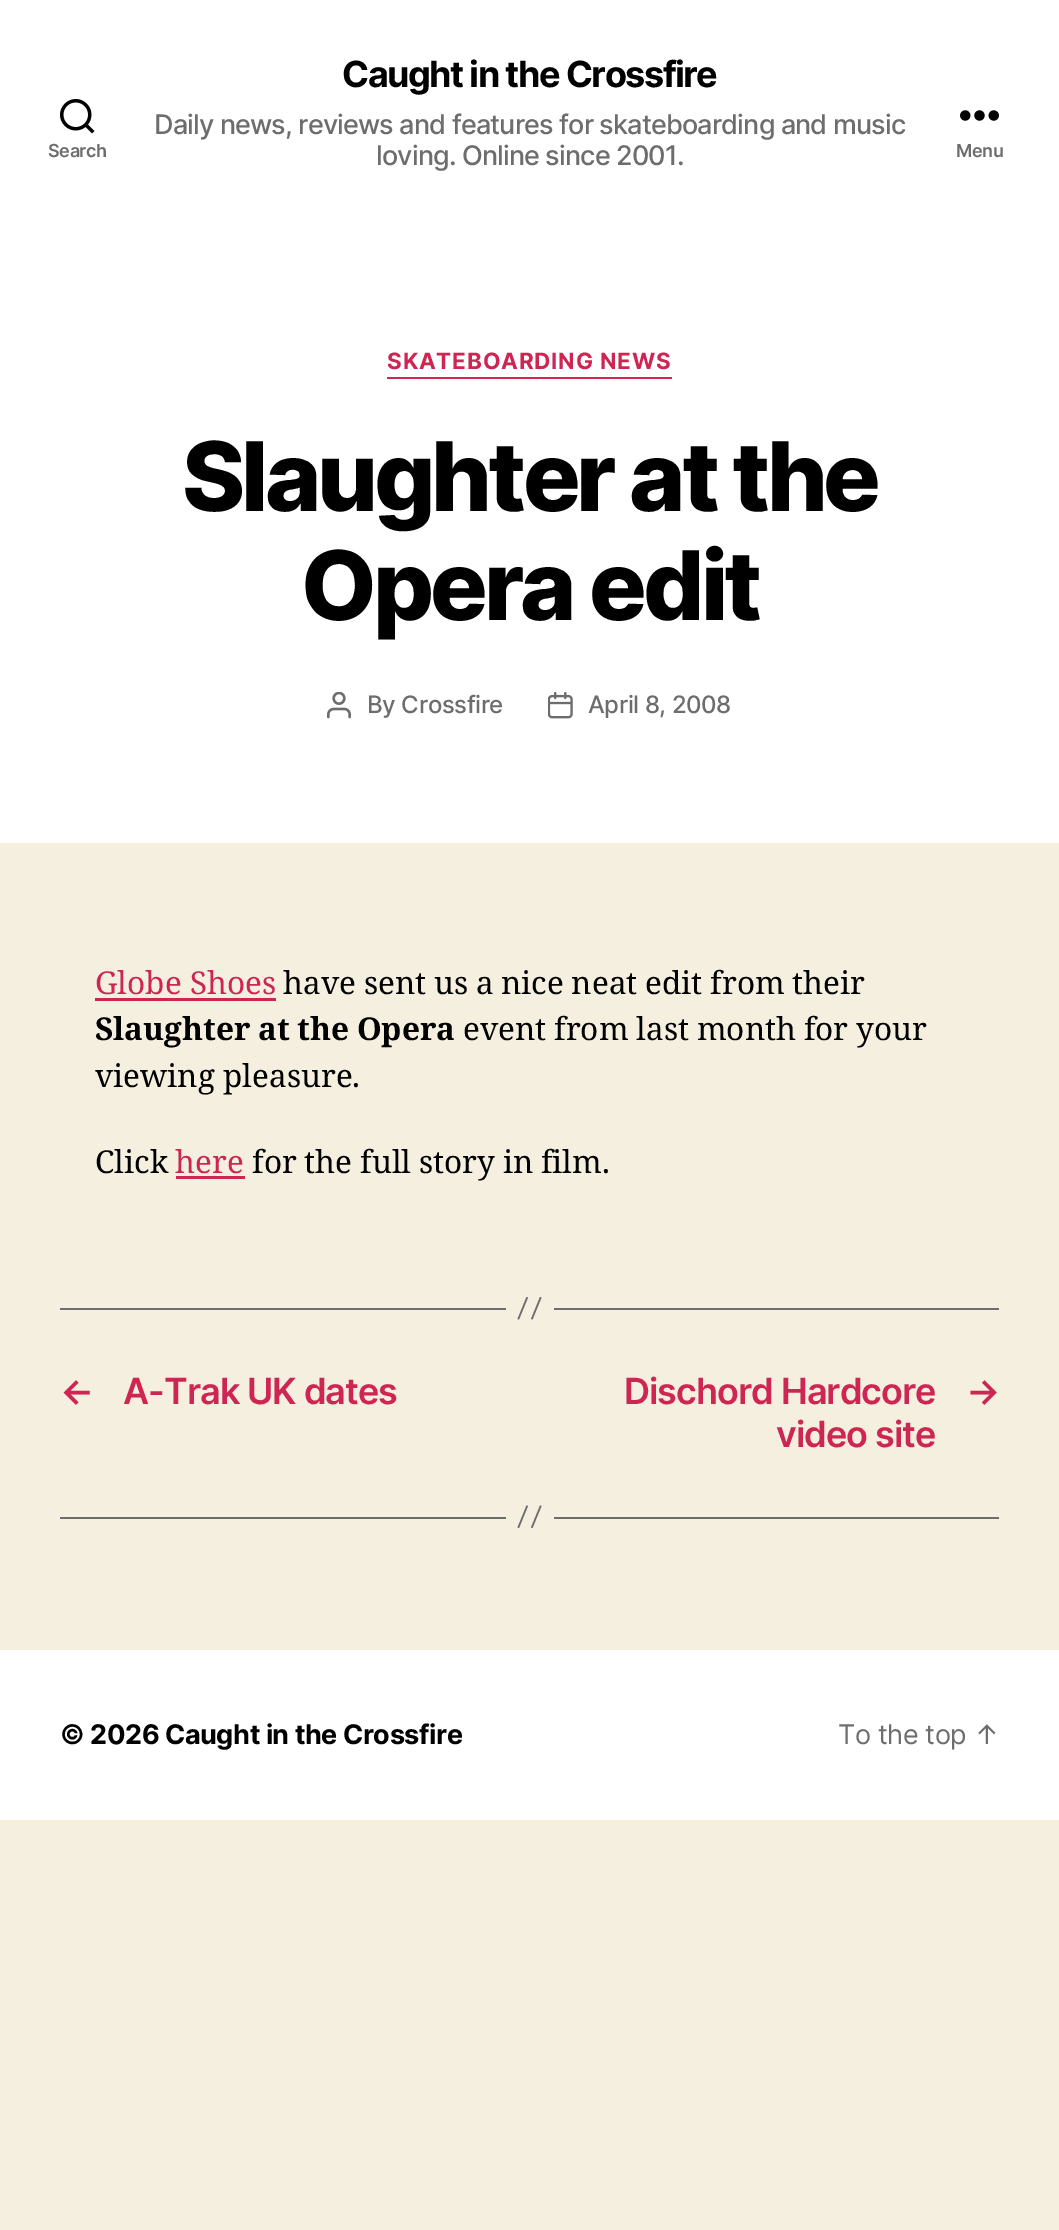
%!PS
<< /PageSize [1059 2230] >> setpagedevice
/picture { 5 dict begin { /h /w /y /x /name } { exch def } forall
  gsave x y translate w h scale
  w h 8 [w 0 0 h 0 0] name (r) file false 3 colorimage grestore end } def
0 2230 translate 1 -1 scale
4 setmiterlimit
0.961 0.937 0.878 setrgbcolor
0 0 1059 2230 rectfill
1 setgray
0 0 1059 843 rectfill
(img1.rgb) 60 99 35 35 picture
/Inter-SemiBold [18 0 0 -18 0 0] selectfont
0.427 setgray
48 157 moveto -0.4 0 (Search) ashow
/Inter-Bold [36 0 0 -36 0 0] selectfont
0 setgray
342 87 moveto -1.5 0 (Caught in the Crossfire) ashow
/Inter-Medium [27 0 0 -27 0 0] selectfont
0.427 setgray
154 134 moveto -0.85 0 (Daily news, reviews and features for skateboarding and music) ashow
376 165 moveto -0.85 0 (loving. Online since 2001.) ashow
(img2.rgb) 960 110 39 11 picture
/Inter-SemiBold [18 0 0 -18 0 0] selectfont
956 157 moveto -0.4 0 (Menu) ashow
0.804 0.149 0.325 setrgbcolor
387 377 285 2 rectfill
/Inter-Bold [22.5 0 0 -22.5 0 0] selectfont
387 369 moveto 0.8 0 (SKATEBOARDING NEWS) ashow
/Inter-ExtraBold [96 0 0 -96 0 0] selectfont
0 setgray
182 511 moveto -4 0 (Slaughter at the) ashow
301 620 moveto -4 0 (Opera edit) ashow
(img3.rgb) 327 692 24 27 picture
/Inter-Medium [24 0 0 -24 0 0] selectfont
0.427 setgray
367 713 moveto -0.4 0 (By Crossfire) ashow
(img4.rgb) 548 692 25 27 picture
588 713 moveto -0.4 0 (April 8, 2008) ashow
/NotoSerif-Regular [31.5 0 0 -31.5 0 0] selectfont
0.804 0.149 0.325 setrgbcolor
95 994 moveto (Globe Shoes) show
95 998 181 3 rectfill
0 setgray
283 994 moveto -0.5 0 32 (have sent us a nice neat edit from their) widthshow
/NotoSerif-Bold [31.5 0 0 -31.5 0 0] selectfont
95 1040 moveto -0.5 0 32 (Slaughter at the Opera) widthshow
/NotoSerif-Regular [31.5 0 0 -31.5 0 0] selectfont
463 1040 moveto -0.5 0 32 (event from last month for your) widthshow
95 1087 moveto (viewing pleasure.) show
95 1173 moveto (Click) show
0.804 0.149 0.325 setrgbcolor
175 1173 moveto (here) show
176 1176 69 3 rectfill
0 setgray
252 1173 moveto -0.5 0 32 (for the full story in film.) widthshow
0.427 setgray
554 1308 445 2 rectfill
60 1308 446 2 rectfill
newpath 526.5 1297 moveto 528 1297.5 lineto 519 1319.5 lineto 517.5 1319 lineto closepath 540 1297 moveto 541.5 1297.5 lineto 532.5 1319.5 lineto 531 1319 lineto closepath fill
/Inter-SemiBold [36 0 0 -36 0 0] selectfont
0.804 0.149 0.325 setrgbcolor
60 1404 moveto -1 0 (←) ashow
123 1404 moveto -1 0 (A-Trak UK dates) ashow
624 1404 moveto -1 0 (Dischord Hardcore) ashow
776 1447 moveto -1 0 (video site) ashow
966 1404 moveto -1 0 (→) ashow
0.427 setgray
554 1517 445 2 rectfill
60 1517 446 2 rectfill
newpath 526.5 1505.5 moveto 528 1506 lineto 519 1528 lineto 517.5 1527.5 lineto closepath 540 1505.5 moveto 541.5 1506 lineto 532.5 1528 lineto 531 1527.5 lineto closepath fill
1 setgray
0 1650 1059 170 rectfill
/Inter-Bold [27 0 0 -27 0 0] selectfont
0 setgray
60 1744 moveto -0.4 0 (© 2026 Caught in the Crossfire) ashow
/Inter-Regular [27 0 0 -27 0 0] selectfont
0.427 setgray
838 1744 moveto -0.4 0 (To the top ↑) ashow
showpage
